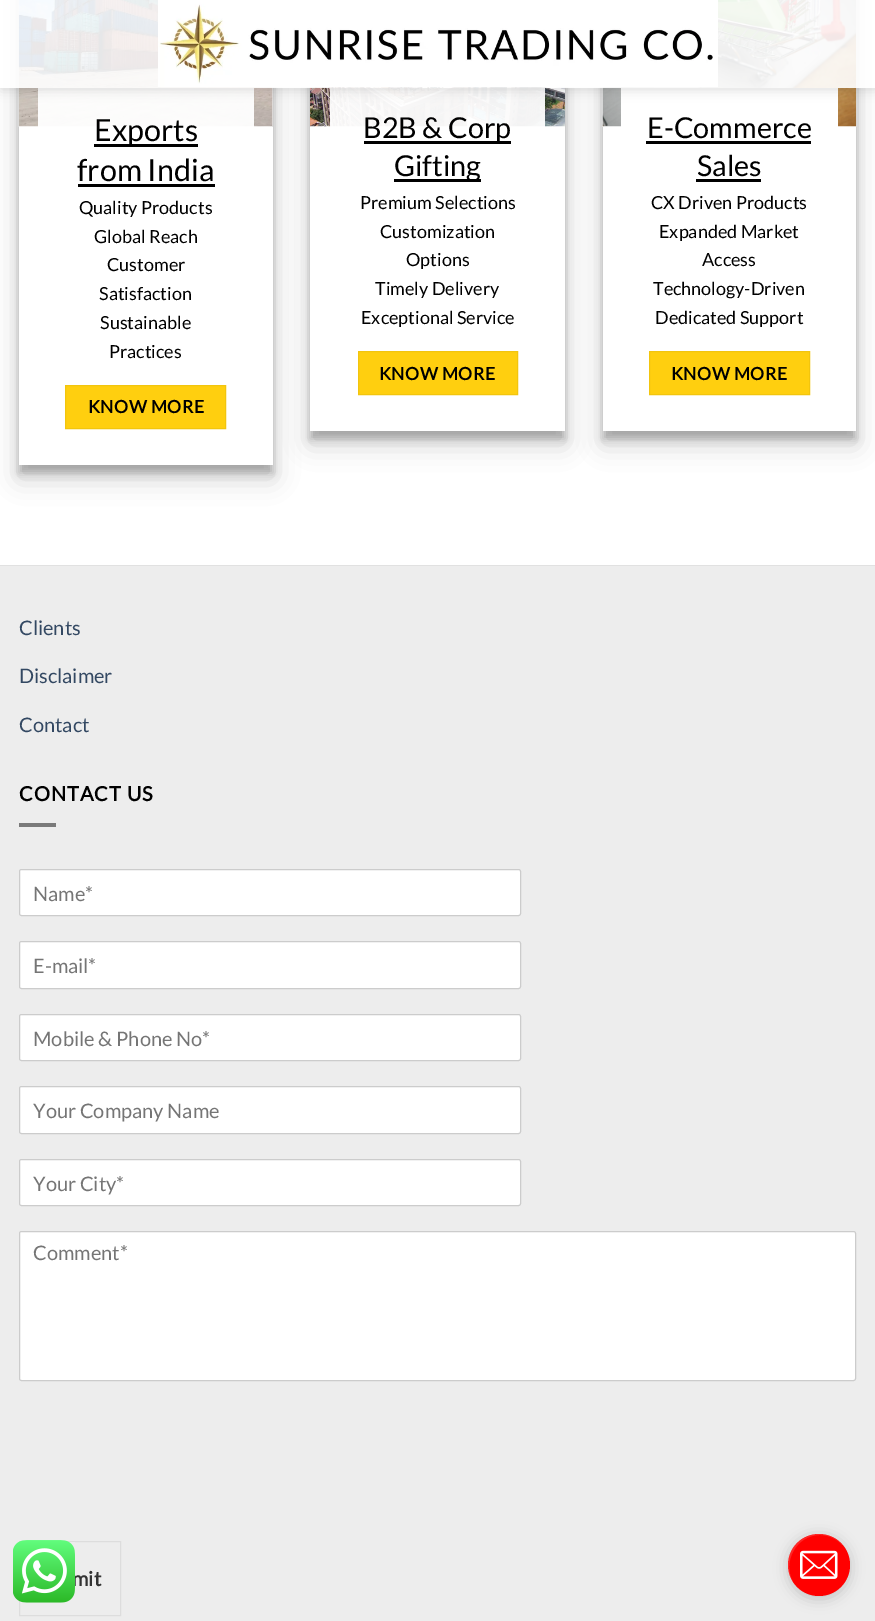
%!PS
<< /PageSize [875 1621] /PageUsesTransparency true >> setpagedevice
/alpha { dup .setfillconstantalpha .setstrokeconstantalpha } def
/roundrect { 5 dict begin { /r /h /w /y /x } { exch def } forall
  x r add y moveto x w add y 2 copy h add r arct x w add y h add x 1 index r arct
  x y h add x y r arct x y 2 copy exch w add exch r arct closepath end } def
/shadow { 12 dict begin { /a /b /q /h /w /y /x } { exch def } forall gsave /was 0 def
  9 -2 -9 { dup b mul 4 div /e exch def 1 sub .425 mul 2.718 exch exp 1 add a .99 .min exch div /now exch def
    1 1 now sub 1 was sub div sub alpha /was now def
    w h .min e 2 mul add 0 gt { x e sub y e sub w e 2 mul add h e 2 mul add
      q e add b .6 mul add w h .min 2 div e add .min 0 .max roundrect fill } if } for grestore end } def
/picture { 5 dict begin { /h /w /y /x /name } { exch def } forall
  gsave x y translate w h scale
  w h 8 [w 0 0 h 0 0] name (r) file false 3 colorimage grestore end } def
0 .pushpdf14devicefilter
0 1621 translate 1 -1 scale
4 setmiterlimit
1 setgray
0 0 875 1621 rectfill
gsave
newpath 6 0 moveto 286 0 lineto 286 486 lineto 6 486 lineto closepath 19 -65 moveto 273 -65 lineto 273 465 lineto 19 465 lineto closepath eoclip newpath
0 setgray
19 -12 254 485 0 4 0.22 shadow
grestore
gsave
newpath 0 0 moveto 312 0 lineto 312 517 lineto 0 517 lineto closepath 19 -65 moveto 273 -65 lineto 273 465 lineto 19 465 lineto closepath eoclip newpath
0 setgray
19 -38 254 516 0 12.5 0.19 shadow
grestore
(img2.rgb) 18 0 255 127 picture
0.95 alpha
38 88 216 39 rectfill
gsave
newpath 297 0 moveto 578 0 lineto 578 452 lineto 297 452 lineto closepath 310 -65 moveto 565 -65 lineto 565 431 lineto 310 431 lineto closepath eoclip newpath
1 alpha
0 setgray
310 -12 255 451 0 4 0.22 shadow
grestore
gsave
newpath 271 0 moveto 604 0 lineto 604 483 lineto 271 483 lineto closepath 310 -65 moveto 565 -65 lineto 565 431 lineto 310 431 lineto closepath eoclip newpath
1 alpha
0 setgray
310 -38 255 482 0 12.5 0.19 shadow
grestore
1 alpha
(img3.rgb) 310 87 255 40 picture
0.95 alpha
330 88 215 39 rectfill
gsave
newpath 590 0 moveto 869 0 lineto 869 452 lineto 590 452 lineto closepath 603 -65 moveto 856 -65 lineto 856 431 lineto 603 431 lineto closepath eoclip newpath
1 alpha
0 setgray
603 -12 253 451 0 4 0.22 shadow
grestore
gsave
newpath 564 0 moveto 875 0 lineto 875 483 lineto 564 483 lineto closepath 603 -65 moveto 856 -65 lineto 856 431 lineto 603 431 lineto closepath eoclip newpath
1 alpha
0 setgray
603 -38 253 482 0 12.5 0.19 shadow
grestore
1 alpha
(img4.rgb) 602 0 255 127 picture
621 88 217 39 rectfill
gsave
newpath 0 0 moveto 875 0 lineto 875 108 lineto 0 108 lineto closepath 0 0 moveto 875 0 lineto 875 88 lineto 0 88 lineto closepath eoclip newpath
0 setgray
1 1 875 88 0 6 0.15 shadow
grestore
0.9 alpha
0 0 875 88 rectfill
1 alpha
(img1.rgb) 158 0 560 87 picture
0 setgray
94 144 104 3 rectfill
/Lato-Regular [30.5 0 0 -30.5 0 0] selectfont
94 141 moveto (Exports) show
77 181 moveto (from India) show
78 184 137 3 rectfill
/Lato-Regular [18 0 0 -18 0 0] selectfont
79 214 moveto (Quality Products) show
94 243 moveto (Global Reach) show
107 271 moveto (Customer) show
99 300 moveto (Satisfaction) show
100 329 moveto (Sustainable) show
109 358 moveto (Practices) show
1 0.812 0.059 setrgbcolor
newpath 65.5 385.5 moveto 225.5 385.5 lineto 225.5 428.5 lineto 65.5 428.5 lineto closepath gsave fill grestore
0.949 0.773 0.055 setrgbcolor
stroke
/Lato-Bold [17.5 0 0 -17.5 0 0] selectfont
0 setgray
88 413 moveto 0.5 0 (KNOW MORE) ashow
364 141 147 3 rectfill
/Lato-Regular [28.75 0 0 -28.75 0 0] selectfont
363 138 moveto (B2B & Corp) show
394 179 87 3 rectfill
394 176 moveto (Gifting) show
/Lato-Regular [18 0 0 -18 0 0] selectfont
360 209 moveto (Premium Selections) show
380 238 moveto (Customization) show
406 266 moveto (Options) show
375 295 moveto (Timely Delivery) show
361 324 moveto (Exceptional Service) show
1 0.812 0.059 setrgbcolor
newpath 358.5 351.5 moveto 517.5 351.5 lineto 517.5 394.5 lineto 358.5 394.5 lineto closepath gsave fill grestore
0.949 0.773 0.055 setrgbcolor
stroke
/Lato-Bold [17.5 0 0 -17.5 0 0] selectfont
0 setgray
379 380 moveto 0.5 0 (KNOW MORE) ashow
/Lato-Regular [28.75 0 0 -28.75 0 0] selectfont
647 138 moveto (E-Commerce) show
646 141 165 3 rectfill
697 176 moveto (Sales) show
696 179 65 3 rectfill
/Lato-Regular [18 0 0 -18 0 0] selectfont
651 209 moveto (CX Driven Products) show
659 238 moveto (Expanded Market) show
702 266 moveto (Access) show
653 295 moveto (Technology-Driven) show
655 324 moveto (Dedicated Support) show
1 0.812 0.059 setrgbcolor
newpath 649.5 351.5 moveto 809.5 351.5 lineto 809.5 394.5 lineto 649.5 394.5 lineto closepath gsave fill grestore
0.949 0.773 0.055 setrgbcolor
stroke
/Lato-Bold [17.5 0 0 -17.5 0 0] selectfont
0 setgray
671 380 moveto 0.5 0 (KNOW MORE) ashow
0.929 setgray
0 566 875 1055 rectfill
0.882 setgray
0 565 875 1 rectfill
/Lato-Regular [20 0 0 -20 0 0] selectfont
0.2 0.282 0.384 setrgbcolor
19 635 moveto (Clients) show
19 683 moveto (Disclaimer) show
19 732 moveto (Contact) show
/Lato-Bold [20 0 0 -20 0 0] selectfont
0 setgray
19 801 moveto 1 0 (CONTACT US) ashow
0.478 setgray
19 823 37 4 rectfill
1 setgray
19.5 869.5 501 46 2 roundrect gsave fill grestore
0.8 setgray
stroke
/Lato-Regular [20 0 0 -20 0 0] selectfont
0.459 setgray
33 901 moveto (Name*) show
1 setgray
19.5 941.5 501 47 2 roundrect gsave fill grestore
0.8 setgray
stroke
0.459 setgray
33 973 moveto (E-mail*) show
1 setgray
19.5 1014.5 501 46 2 roundrect gsave fill grestore
0.8 setgray
stroke
0.459 setgray
33 1046 moveto (Mobile & Phone No*) show
1 setgray
19.5 1086.5 501 47 2 roundrect gsave fill grestore
0.8 setgray
stroke
0.459 setgray
33 1118 moveto (Your Company Name) show
1 setgray
19.5 1159.5 501 46 2 roundrect gsave fill grestore
0.8 setgray
stroke
0.459 setgray
33 1191 moveto (Your City*) show
1 setgray
19.5 1231.5 836 149 2 roundrect gsave fill grestore
0.8 setgray
stroke
0.459 setgray
33 1260 moveto (Comment*) show
0.867 setgray
19.5 1541.5 101 74 rectstroke
/Lato-Bold [20 0 0 -20 0 0] selectfont
0.2 setgray
72 1586 moveto (mit) show
0.502 setgray
788 1536 62 63 31 7 0.4 shadow
1 0 0 setrgbcolor
newpath 819 1565 31 0 360 arc closepath fill
0.15 alpha
1 setgray
newpath 820 1535 moveto 829 1535 837 1539 842 1545 curveto 817 1516 772 1550 793 1582 curveto 782 1562 796 1535 820 1535 curveto closepath fill
1 alpha
(img5.rgb) 800 1550 38 29 picture
(img6.rgb) 13 1540 62 63 picture
.poppdf14devicefilter showpage
